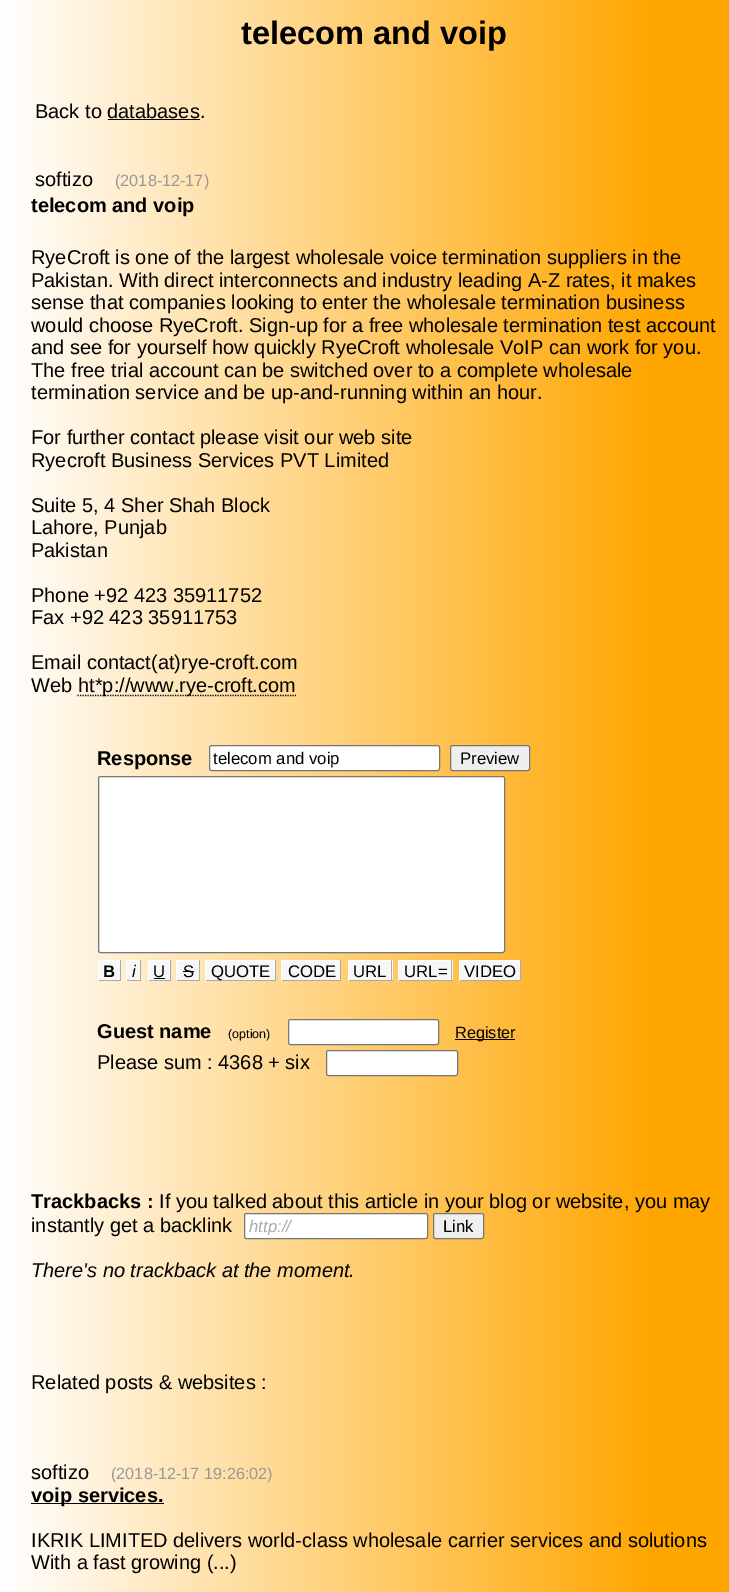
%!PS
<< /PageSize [729 1592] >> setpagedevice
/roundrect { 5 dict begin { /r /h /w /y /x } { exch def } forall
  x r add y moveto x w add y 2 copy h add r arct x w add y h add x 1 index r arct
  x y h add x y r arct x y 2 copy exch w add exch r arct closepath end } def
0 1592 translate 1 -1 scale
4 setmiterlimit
1 setgray
0 0 729 1592 rectfill
gsave newpath 6 0 moveto 729 0 lineto 729 1592 lineto 6 1592 lineto closepath clip newpath
<< /ShadingType 2 /ColorSpace /DeviceRGB /Coords [0 1219 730 1219] /Extend [true true] /Function << /FunctionType 3 /Domain [0 1] /Functions [<< /FunctionType 2 /Domain [0 1] /C0 [1 1 1] /C1 [1 0.647 0] /N 1 >> << /FunctionType 2 /Domain [0 1] /C0 [1 0.647 0] /C1 [1 0.647 0] /N 1 >>] /Bounds [0.9] /Encode [0 1 0 1] >> >> shfill grestore
/LiberationSans-Bold [32.5 0 0 -32.5 0 0] selectfont
0 setgray
241 44 moveto (telecom and voip) show
/LiberationSans-Regular [20 0 0 -20 0 0] selectfont
35 118 moveto (Back to databases.) show
108 119 92 1 rectfill
35 186 moveto (softizo) show
/LiberationSans-Regular [16.25 0 0 -16.25 0 0] selectfont
0.6 setgray
115 186 moveto (\(2018-12-17\)) show
/LiberationSans-Bold [20 0 0 -20 0 0] selectfont
0 setgray
31 212 moveto (telecom and voip) show
/LiberationSans-Regular [20 0 0 -20 0 0] selectfont
31 264 moveto (RyeCroft is one of the largest wholesale voice termination suppliers in the) show
31 287 moveto (Pakistan. With direct interconnects and industry leading A-Z rates, it makes) show
31 309 moveto (sense that companies looking to enter the wholesale termination business) show
31 332 moveto (would choose RyeCroft. Sign-up for a free wholesale termination test account) show
31 354 moveto (and see for yourself how quickly RyeCroft wholesale VoIP can work for you.) show
31 377 moveto (The free trial account can be switched over to a complete wholesale) show
31 399 moveto (termination service and be up-and-running within an hour.) show
31 444 moveto (For further contact please visit our web site) show
31 467 moveto (Ryecroft Business Services PVT Limited) show
31 512 moveto (Suite 5, 4 Sher Shah Block) show
31 534 moveto (Lahore, Punjab) show
31 557 moveto (Pakistan) show
31 602 moveto (Phone +92 423 35911752) show
31 624 moveto (Fax +92 423 35911753) show
31 669 moveto (Email contact\(at\)rye-croft.com) show
31 692 moveto (Web) show
1.2 setlinewidth
[1.25 1.25] 0 setdash
newpath 77.5 695.5 moveto 296 695.5 lineto stroke
78 692 moveto (ht*p://www.rye-croft.com) show
/LiberationSans-Bold [20 0 0 -20 0 0] selectfont
97 765 moveto (Response) show
1 setgray
209.5 745.5 230 25 2 roundrect gsave fill grestore
0.463 setgray
1 setlinewidth
[] 0 setdash
stroke
/LiberationSans-Regular [16.75 0 0 -16.75 0 0] selectfont
0 setgray
213 764 moveto (telecom and voip) show
0.937 setgray
450.5 745.5 79 25 2 roundrect gsave fill grestore
0.463 setgray
stroke
0 setgray
460 764 moveto (Preview) show
1 setgray
98.5 776.5 406 176 2 roundrect gsave fill grestore
0.463 setgray
stroke
0.969 setgray
103 961 12 19 rectfill
/LiberationSans-Bold [16.75 0 0 -16.75 0 0] selectfont
0 setgray
103 977 moveto (B) show
0.969 setgray
99 960 4 21 rectfill
1 setgray
98 960 17 1 rectfill
0.667 setgray
98 980 17 1 rectfill
1 setgray
98 960 1 21 rectfill
0.969 setgray
115 960 5 21 rectfill
1 setgray
115 960 6 1 rectfill
0.667 setgray
120 960 1 21 rectfill
115 980 6 1 rectfill
0.969 setgray
127 960 9 21 rectfill
1 setgray
126 960 11 1 rectfill
0.667 setgray
126 980 11 1 rectfill
0.969 setgray
136 960 4 21 rectfill
/LiberationSans-Italic [16.75 0 0 -16.75 0 0] selectfont
0 setgray
132 977 moveto (i) show
1 setgray
126 960 1 21 rectfill
136 960 5 1 rectfill
0.667 setgray
140 960 1 21 rectfill
136 980 5 1 rectfill
0.969 setgray
154 961 11 19 rectfill
/LiberationSans-Regular [16.75 0 0 -16.75 0 0] selectfont
0 setgray
153 977 moveto (U) show
0.969 setgray
149 960 5 21 rectfill
1 setgray
148 960 17 1 rectfill
0.667 setgray
148 980 17 1 rectfill
1 setgray
148 960 1 21 rectfill
0.969 setgray
165 960 5 21 rectfill
1 setgray
165 960 6 1 rectfill
0.667 setgray
170 960 1 21 rectfill
165 980 6 1 rectfill
0 setgray
154 978 11 1 rectfill
0.969 setgray
183 961 11 19 rectfill
0 setgray
183 977 moveto (S) show
0.969 setgray
177 960 6 21 rectfill
1 setgray
176 960 18 1 rectfill
0.667 setgray
176 980 18 1 rectfill
1 setgray
176 960 1 21 rectfill
0.969 setgray
194 960 5 21 rectfill
1 setgray
194 960 6 1 rectfill
0.667 setgray
199 960 1 21 rectfill
194 980 6 1 rectfill
0 setgray
183 971 11 1 rectfill
0.969 setgray
206 961 69 19 rectfill
1 setgray
205 960 71 1 rectfill
0.667 setgray
275 960 1 21 rectfill
205 980 71 1 rectfill
0 setgray
211 977 moveto (QUOTE) show
1 setgray
205 960 1 21 rectfill
0.969 setgray
282 961 58 19 rectfill
0 setgray
288 977 moveto (CODE) show
1 setgray
281 960 60 1 rectfill
0.667 setgray
340 960 1 21 rectfill
281 980 60 1 rectfill
1 setgray
281 960 1 21 rectfill
0.969 setgray
349 961 44 19 rectfill
0 setgray
353 977 moveto (URL) show
1 setgray
348 960 45 1 rectfill
0.667 setgray
391 960 1 21 rectfill
348 980 45 1 rectfill
1 setgray
348 960 1 21 rectfill
0.969 setgray
399 961 54 19 rectfill
0 setgray
404 977 moveto (URL=) show
1 setgray
398 960 55 1 rectfill
0.667 setgray
451 960 1 21 rectfill
398 980 55 1 rectfill
1 setgray
398 960 1 21 rectfill
0.969 setgray
460 961 60 19 rectfill
0 setgray
464 977 moveto (VIDEO) show
1 setgray
459 960 62 1 rectfill
0.667 setgray
520 960 1 21 rectfill
459 980 62 1 rectfill
1 setgray
459 960 1 21 rectfill
/LiberationSans-Bold [20 0 0 -20 0 0] selectfont
0 setgray
97 1038 moveto (Guest name) show
/LiberationSans-Regular [12.5 0 0 -12.5 0 0] selectfont
228 1038 moveto (\(option\)) show
1 setgray
288.5 1019.5 150 25 2 roundrect gsave fill grestore
0.463 setgray
stroke
0 setgray
455 1039 60 1 rectfill
/LiberationSans-Regular [16.25 0 0 -16.25 0 0] selectfont
455 1038 moveto (Register) show
/LiberationSans-Regular [20 0 0 -20 0 0] selectfont
97 1069 moveto (Please sum : 4368 + six) show
1 setgray
326.5 1050.5 131 25 2 roundrect gsave fill grestore
0.463 setgray
stroke
/LiberationSans-Bold [20 0 0 -20 0 0] selectfont
0 setgray
31 1208 moveto (Trackbacks :) show
/LiberationSans-Regular [20 0 0 -20 0 0] selectfont
159 1208 moveto (If you talked about this article in your blog or website, you may) show
31 1232 moveto (instantly get a backlink) show
1 setgray
244.5 1213.5 183 25 2 roundrect gsave fill grestore
0.463 setgray
stroke
gsave
249 1216 174 19 rectclip
/LiberationSans-Italic [16.75 0 0 -16.75 0 0] selectfont
0.667 setgray
249 1232 moveto (http://) show
grestore
0.937 setgray
433.5 1213.5 50 25 2 roundrect gsave fill grestore
0.463 setgray
stroke
/LiberationSans-Regular [16.75 0 0 -16.75 0 0] selectfont
0 setgray
443 1232 moveto (Link) show
/LiberationSans-Italic [20 0 0 -20 0 0] selectfont
31 1277 moveto (There's no trackback at the moment.) show
/LiberationSans-Regular [20 0 0 -20 0 0] selectfont
31 1389 moveto (Related posts & websites :) show
31 1479 moveto (softizo) show
/LiberationSans-Regular [16.25 0 0 -16.25 0 0] selectfont
0.6 setgray
111 1479 moveto (\(2018-12-17 19:26:02\)) show
0 setgray
31 1503 133 1 rectfill
/LiberationSans-Bold [20 0 0 -20 0 0] selectfont
31 1502 moveto (voip services.) show
/LiberationSans-Regular [20 0 0 -20 0 0] selectfont
31 1547 moveto (IKRIK LIMITED delivers world-class wholesale carrier services and solutions) show
31 1569 moveto (With a fast growing \(...\)) show
showpage
